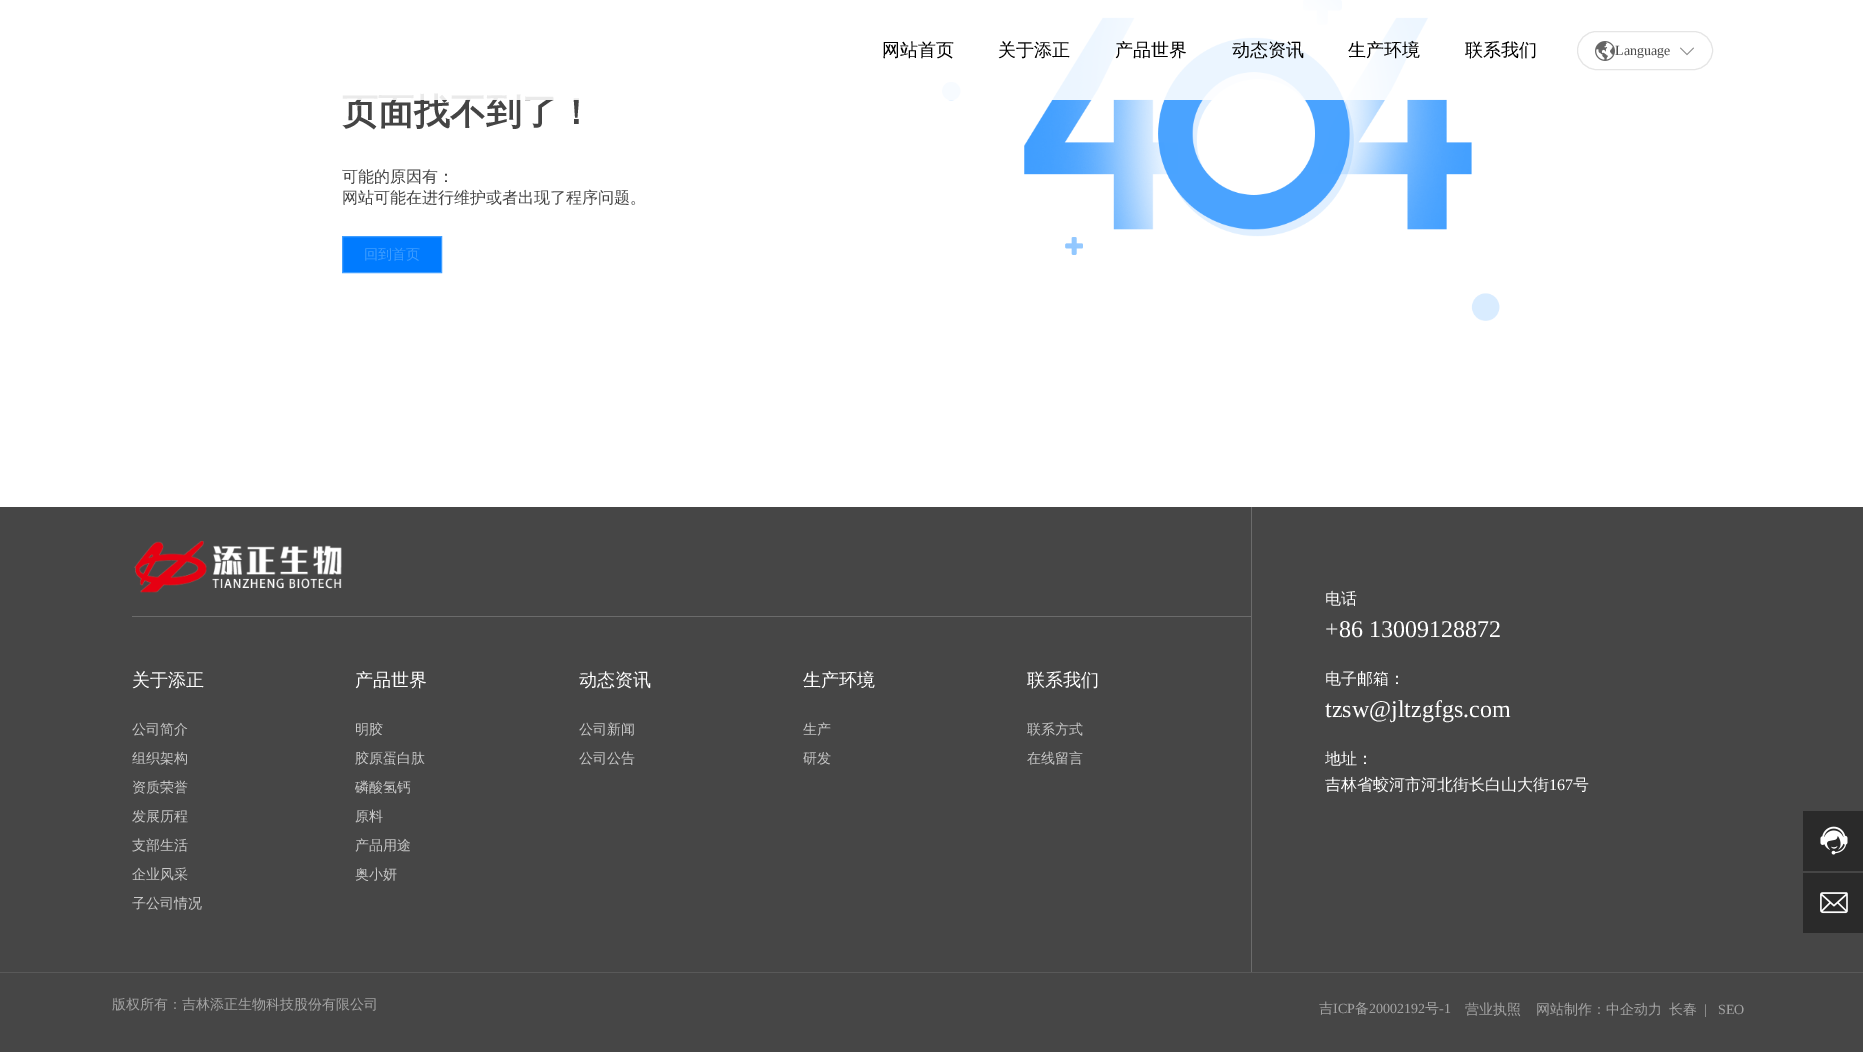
%!PS
<< /PageSize [1863 1052] /PageUsesTransparency true >> setpagedevice
/alpha { dup .setfillconstantalpha .setstrokeconstantalpha } def
/roundrect { 5 dict begin { /r /h /w /y /x } { exch def } forall
  x r add y moveto x w add y 2 copy h add r arct x w add y h add x 1 index r arct
  x y h add x y r arct x y 2 copy exch w add exch r arct closepath end } def
/picture { 5 dict begin { /h /w /y /x /name } { exch def } forall
  gsave x y translate w h scale
  w h 8 [w 0 0 h 0 0] name (r) file false 3 colorimage grestore end } def
0 .pushpdf14devicefilter
0 1052 translate 1 -1 scale
4 setmiterlimit
1 setgray
0 0 1863 1052 rectfill
/WenQuanYiZenHei-Bold [36 0 0 -36 0 0] selectfont
0.267 setgray
342 124 moveto (页面找不到了！) show
(img3.rgb) 942 0 558 321 picture
0.89 alpha
1 setgray
342 0 1105 100 rectfill
/WenQuanYiZenHei-Medium [18 0 0 -18 0 0] selectfont
1 alpha
0 setgray
882 56 moveto (网站首页) show
998 56 moveto (关于添正) show
1115 56 moveto (产品世界) show
1232 56 moveto (动态资讯) show
1348 56 moveto (生产环境) show
1465 56 moveto (联系我们) show
0.898 setgray
1577.5 31.5 135 38 19 roundrect stroke
/LiberationSerif-Regular [14 0 0 -14 0 0] selectfont
0.298 setgray
1615 55 moveto (Language) show
(img1.rgb) 1595 41 20 20 picture
(img2.rgb) 1680 47 14 9 picture
/WenQuanYiZenHei-Medium [16 0 0 -16 0 0] selectfont
0.267 setgray
342 182 moveto (可能的原因有：) show
342 203 moveto (网站可能在进行维护或者出现了程序问题。) show
0 0.482 1 setrgbcolor
newpath 342.5 236.5 moveto 441.5 236.5 lineto 441.5 272.5 lineto 342.5 272.5 lineto closepath gsave fill grestore
0.251 0.62 1 setrgbcolor
stroke
/WenQuanYiZenHei-Medium [14 0 0 -14 0 0] selectfont
364 259 moveto (回到首页) show
0.275 setgray
0 507 1863 545 rectfill
0.42 setgray
1251 507 1 465 rectfill
132 616 1119 1 rectfill
(img4.rgb) 134 540 208 53 picture
/WenQuanYiZenHei-Medium [18 0 0 -18 0 0] selectfont
1 setgray
132 686 moveto (关于添正) show
/WenQuanYiZenHei-Medium [14 0 0 -14 0 0] selectfont
0.784 setgray
132 734 moveto (公司简介) show
132 763 moveto (组织架构) show
132 792 moveto (资质荣誉) show
132 821 moveto (发展历程) show
132 850 moveto (支部生活) show
132 879 moveto (企业风采) show
132 908 moveto (子公司情况) show
/WenQuanYiZenHei-Medium [18 0 0 -18 0 0] selectfont
1 setgray
355 686 moveto (产品世界) show
/WenQuanYiZenHei-Medium [14 0 0 -14 0 0] selectfont
0.784 setgray
355 734 moveto (明胶) show
355 763 moveto (胶原蛋白肽) show
355 792 moveto (磷酸氢钙) show
355 821 moveto (原料) show
355 850 moveto (产品用途) show
355 879 moveto (奥小妍) show
/WenQuanYiZenHei-Medium [18 0 0 -18 0 0] selectfont
1 setgray
579 686 moveto (动态资讯) show
/WenQuanYiZenHei-Medium [14 0 0 -14 0 0] selectfont
0.784 setgray
579 734 moveto (公司新闻) show
579 763 moveto (公司公告) show
/WenQuanYiZenHei-Medium [18 0 0 -18 0 0] selectfont
1 setgray
803 686 moveto (生产环境) show
/WenQuanYiZenHei-Medium [14 0 0 -14 0 0] selectfont
0.784 setgray
803 734 moveto (生产) show
803 763 moveto (研发) show
/WenQuanYiZenHei-Medium [18 0 0 -18 0 0] selectfont
1 setgray
1027 686 moveto (联系我们) show
/WenQuanYiZenHei-Medium [14 0 0 -14 0 0] selectfont
0.784 setgray
1027 734 moveto (联系方式) show
1027 763 moveto (在线留言) show
/WenQuanYiZenHei-Medium [16 0 0 -16 0 0] selectfont
1 setgray
1325 604 moveto (电话) show
/LiberationSerif-Regular [24 0 0 -24 0 0] selectfont
1325 637 moveto (+86 13009128872) show
/WenQuanYiZenHei-Medium [16 0 0 -16 0 0] selectfont
1325 684 moveto (电子邮箱：) show
/LiberationSerif-Regular [24 0 0 -24 0 0] selectfont
1325 717 moveto (tzsw@jltzgfgs.com) show
/WenQuanYiZenHei-Medium [16 0 0 -16 0 0] selectfont
1325 764 moveto (地址：) show
1325 790 moveto (吉林省蛟河市河北街长白山大街) show
/LiberationSerif-Regular [16 0 0 -16 0 0] selectfont
1549 790 moveto (167) show
/WenQuanYiZenHei-Medium [16 0 0 -16 0 0] selectfont
1573 790 moveto (号) show
0.349 setgray
0 972 1863 1 rectfill
/WenQuanYiZenHei-Medium [14 0 0 -14 0 0] selectfont
0.639 setgray
112 1009 moveto (版权所有：吉林添正生物科技股份有限公司) show
1319 1013 moveto (吉) show
/LiberationSerif-Regular [14 0 0 -14 0 0] selectfont
1333 1013 moveto (ICP) show
/WenQuanYiZenHei-Medium [14 0 0 -14 0 0] selectfont
1355 1013 moveto (备) show
/LiberationSerif-Regular [14 0 0 -14 0 0] selectfont
1369 1013 moveto (20002192) show
/WenQuanYiZenHei-Medium [14 0 0 -14 0 0] selectfont
1425 1013 moveto (号) show
/LiberationSerif-Regular [14 0 0 -14 0 0] selectfont
1439 1013 moveto (-1) show
/WenQuanYiZenHei-Medium [14 0 0 -14 0 0] selectfont
1465 1014 moveto (营业执照) show
1536 1014 moveto (网站制作：中企动力) show
1669 1014 moveto (长春) show
/LiberationSerif-Regular [14 0 0 -14 0 0] selectfont
1704 1014 moveto (|) show
1718 1014 moveto (SEO) show
0.165 setgray
1803 811 60 60 rectfill
(img5.rgb) 1820 826 28 29 picture
1803 873 60 60 rectfill
(img6.rgb) 1820 892 28 22 picture
.poppdf14devicefilter showpage
